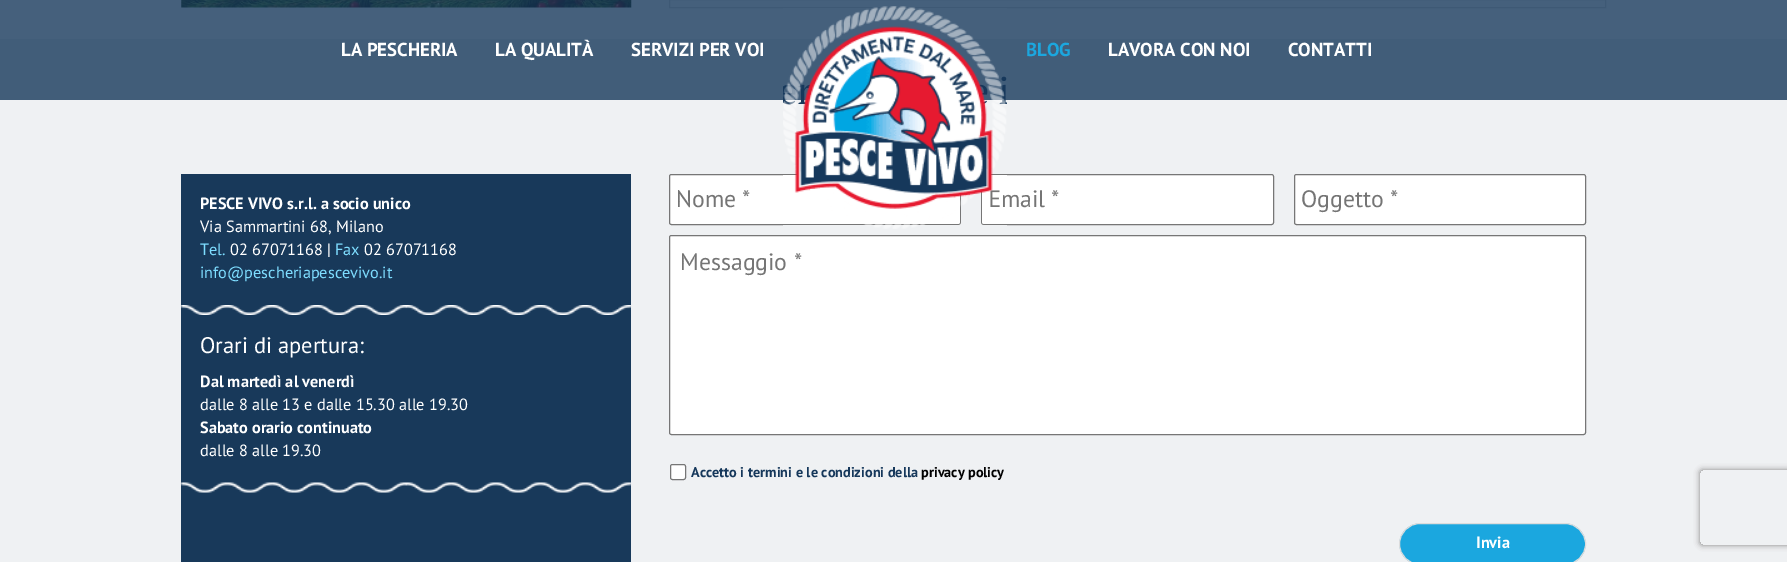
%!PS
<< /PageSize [1787 562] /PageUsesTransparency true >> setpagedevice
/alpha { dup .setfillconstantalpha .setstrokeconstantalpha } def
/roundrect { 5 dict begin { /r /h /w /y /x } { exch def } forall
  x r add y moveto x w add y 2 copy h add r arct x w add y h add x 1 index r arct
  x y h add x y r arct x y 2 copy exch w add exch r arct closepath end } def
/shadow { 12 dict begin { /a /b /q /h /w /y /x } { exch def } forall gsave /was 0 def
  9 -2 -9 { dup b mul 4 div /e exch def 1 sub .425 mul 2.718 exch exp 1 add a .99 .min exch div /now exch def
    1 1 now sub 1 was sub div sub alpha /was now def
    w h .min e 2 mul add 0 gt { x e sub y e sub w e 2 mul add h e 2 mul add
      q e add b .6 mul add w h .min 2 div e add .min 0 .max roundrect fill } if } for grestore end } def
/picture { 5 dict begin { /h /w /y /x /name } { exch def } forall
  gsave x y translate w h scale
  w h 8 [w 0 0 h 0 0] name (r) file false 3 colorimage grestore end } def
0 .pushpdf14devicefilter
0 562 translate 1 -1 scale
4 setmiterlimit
1 setgray
0 0 1787 562 rectfill
(img1.rgb) 181 0 451 8 picture
0.863 setgray
669.5 -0.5 936 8 rectstroke
0.937 0.945 0.953 setrgbcolor
0 39 1787 523 rectfill
0.8 alpha
0.086 0.22 0.357 setrgbcolor
0 0 1787 100 rectfill
/PTSans-Bold [18.75 0 0 -18.75 0 0] selectfont
1 alpha
1 setgray
341 56 moveto (LA PESCHERIA) show
495 56 moveto (LA QUALITÀ) show
631 56 moveto (SERVIZI PER VOI) show
669.5 174.5 291 50 2 roundrect gsave fill grestore
0.463 setgray
stroke
1 setgray
981.5 174.5 292 50 2 roundrect gsave fill grestore
0.463 setgray
stroke
/PTSans-Regular [23.75 0 0 -23.75 0 0] selectfont
0.459 setgray
988 207 moveto (Email *) show
(img2.rgb) 783 6 224 223 picture
/PTSans-Bold [18.75 0 0 -18.75 0 0] selectfont
0.106 0.655 0.875 setrgbcolor
1026 56 moveto (BLOG) show
1 setgray
1108 56 moveto (LAVORA CON NOI) show
1288 56 moveto (CONTATTI) show
0.094 0.224 0.353 setrgbcolor
181 174 450 388 rectfill
/PTSans-Bold [16.25 0 0 -16.25 0 0] selectfont
1 setgray
200 209 moveto (PESCE VIVO s.r.l. a socio unico) show
/PTSans-Regular [16.25 0 0 -16.25 0 0] selectfont
200 232 moveto (Via Sammartini 68, Milano) show
0.494 0.867 1 setrgbcolor
200 255 moveto (Tel.) show
1 setgray
230 255 moveto (02 67071168 |) show
0.494 0.867 1 setrgbcolor
335 255 moveto (Fax) show
1 setgray
364 255 moveto (02 67071168) show
0.494 0.867 1 setrgbcolor
200 278 moveto (info@pescheriapescevivo.it) show
(img3.rgb) 181 305 450 10 picture
/PTSans-Regular [22.5 0 0 -22.5 0 0] selectfont
1 setgray
200 353 moveto (Orari di apertura:) show
/PTSans-Bold [16.25 0 0 -16.25 0 0] selectfont
200 387 moveto (Dal martedì al venerdì) show
/PTSans-Regular [16.25 0 0 -16.25 0 0] selectfont
200 410 moveto (dalle 8 alle 13 e dalle 15.30 alle 19.30) show
/PTSans-Bold [16.25 0 0 -16.25 0 0] selectfont
200 433 moveto (Sabato orario continuato) show
/PTSans-Regular [16.25 0 0 -16.25 0 0] selectfont
200 456 moveto (dalle 8 alle 19.30) show
(img4.rgb) 181 482 450 11 picture
/PTSans-Regular [23.75 0 0 -23.75 0 0] selectfont
0.459 setgray
676 207 moveto (Nome *) show
1 setgray
1294.5 174.5 291 50 2 roundrect gsave fill grestore
0.463 setgray
stroke
0.459 setgray
1301 207 moveto (Oggetto *) show
1 setgray
669.5 235.5 916 199 2 roundrect gsave fill grestore
0.463 setgray
stroke
0.459 setgray
680 270 moveto (Messaggio *) show
1 setgray
670.5 464.5 15 15 2 roundrect gsave fill grestore
0.463 setgray
stroke
/PTSans-Bold [14.25 0 0 -14.25 0 0] selectfont
0.086 0.22 0.357 setrgbcolor
691 477 moveto (Accetto i termini e le condizioni della) show
0 setgray
921 477 moveto (privacy policy) show
gsave
newpath 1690 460 moveto 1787 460 lineto 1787 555 lineto 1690 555 lineto closepath 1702.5 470 moveto 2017.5 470 lineto 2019 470 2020 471 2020 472.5 curveto 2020 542.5 lineto 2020 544 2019 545 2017.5 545 curveto 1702.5 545 lineto 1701 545 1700 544 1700 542.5 curveto 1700 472.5 lineto 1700 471 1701 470 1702.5 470 curveto closepath eoclip newpath
0.502 setgray
1700 470 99 75 2.5 3 1 shadow
grestore
0.106 0.655 0.875 setrgbcolor
1399.5 523.5 186 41 20.5 roundrect gsave fill grestore
0.863 setgray
stroke
/PTSans-Bold [16.25 0 0 -16.25 0 0] selectfont
1 setgray
1476 548 moveto (Invia) show
.poppdf14devicefilter showpage
